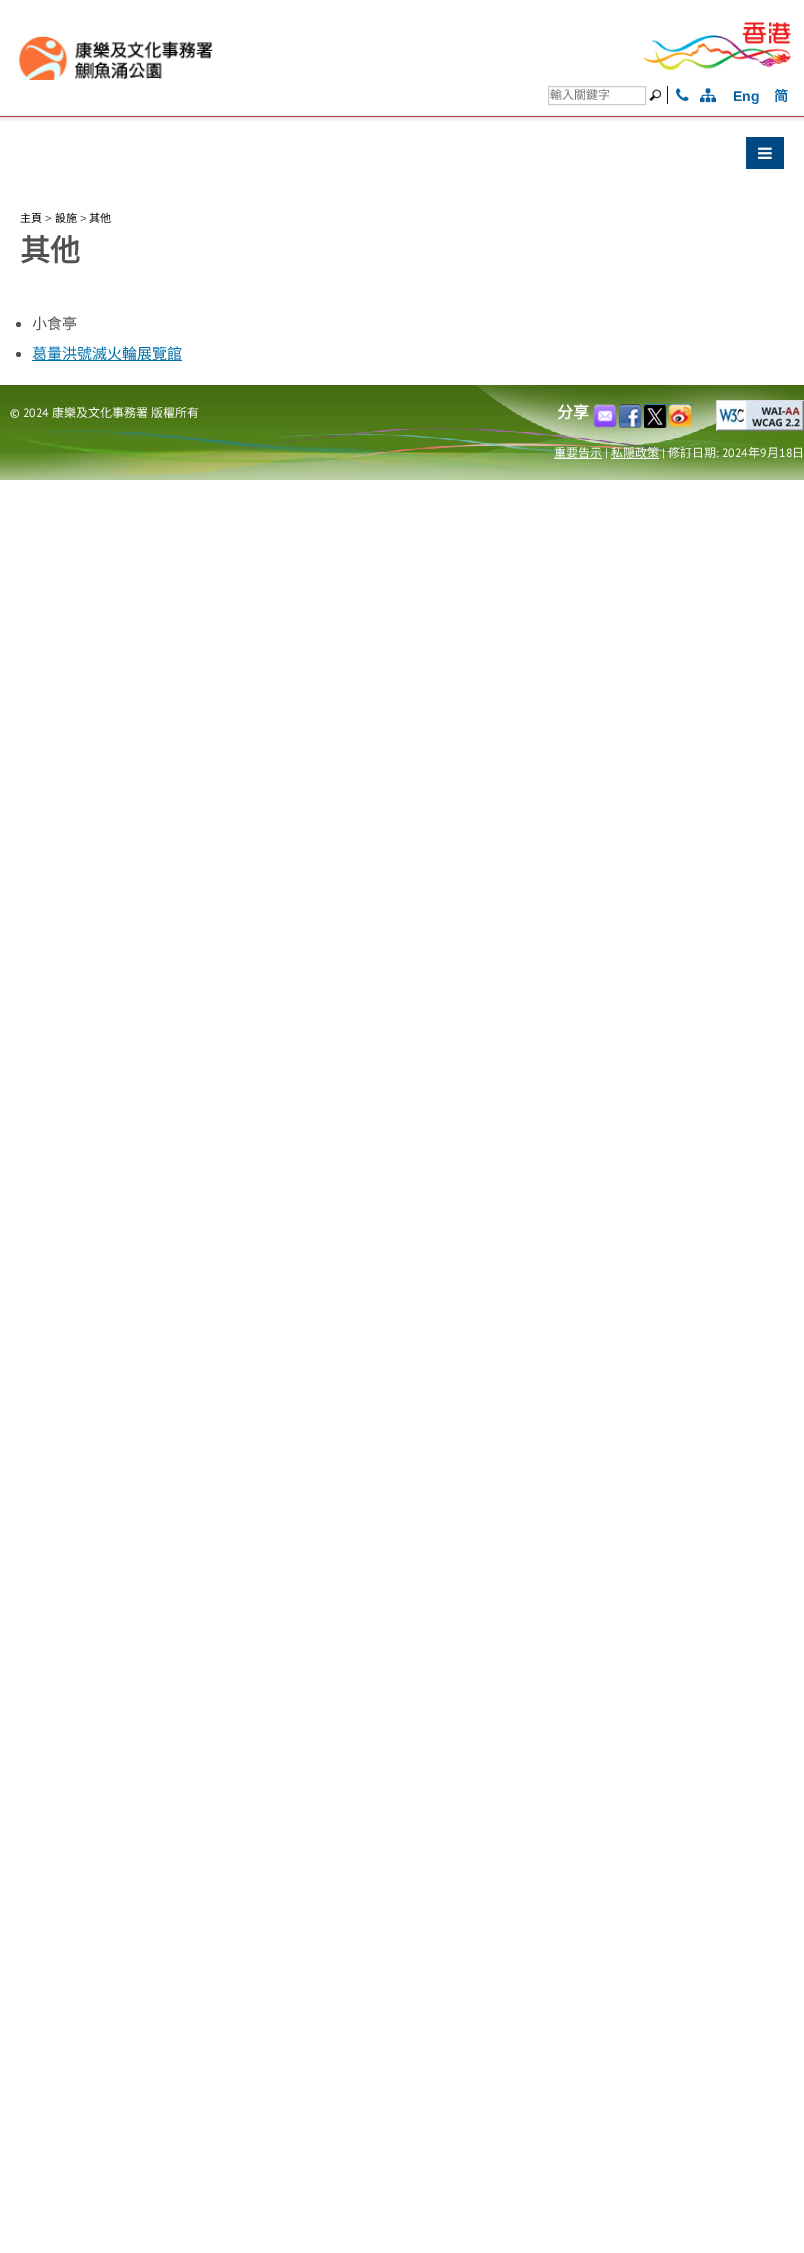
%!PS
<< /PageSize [804 2253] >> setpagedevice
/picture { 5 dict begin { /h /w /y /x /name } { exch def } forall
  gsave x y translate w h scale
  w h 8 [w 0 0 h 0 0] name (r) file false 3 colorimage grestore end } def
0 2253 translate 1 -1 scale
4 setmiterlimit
1 setgray
0 0 804 2253 rectfill
0.69 0.263 0.243 setrgbcolor
0 116 804 1 rectfill
(img1.rgb) 18 35 195 45 picture
(img2.rgb) 643 22 148 49 picture
0.8 setgray
548.5 86.5 97 18 rectstroke
/NotoSansCJKHK-Regular [12 0 0 -12 0 0] selectfont
0.463 setgray
550 99 moveto (輸入關鍵字) show
(img3.rgb) 649 86 19 18 picture
(img4.rgb) 676 88 13 13 picture
(img5.rgb) 700 88 16 15 picture
/LiberationSans-Bold [14 0 0 -14 0 0] selectfont
0.027 0.384 0.659 setrgbcolor
733 101 moveto (Eng) show
/NotoSansCJKHK-Bold [14 0 0 -14 0 0] selectfont
774 101 moveto (简) show
(img6.rgb) 0 117 804 5 picture
0 0.282 0.506 setrgbcolor
746 137 38 32 rectfill
(img7.rgb) 758 147 14 12 picture
/NotoSansCJKHK-Regular [11 0 0 -11 0 0] selectfont
0 setgray
20 222 moveto (主頁) show
/LiberationSans-Regular [11 0 0 -11 0 0] selectfont
0.314 setgray
45 222 moveto (>) show
/NotoSansCJKHK-Regular [11 0 0 -11 0 0] selectfont
0 setgray
55 222 moveto (設施) show
/LiberationSans-Regular [11 0 0 -11 0 0] selectfont
0.314 setgray
80 222 moveto (>) show
/NotoSansCJKHK-Regular [11 0 0 -11 0 0] selectfont
0 setgray
89 222 moveto (其他) show
/NotoSansCJKHK-Bold [30 0 0 -30 0 0] selectfont
0.314 setgray
20 261 moveto (其他) show
newpath 18.5 324.5 2.5 0 360 arc closepath fill
/NotoSansCJKHK-Regular [15 0 0 -15 0 0] selectfont
32 329 moveto (小食亭) show
newpath 18.5 354.5 2.5 0 360 arc closepath fill
0 0.447 0.675 setrgbcolor
32 360 150 1 rectfill
32 359 moveto (葛量洪號滅火輪展覽館) show
0.322 0.506 0.098 setrgbcolor
0 431 804 49 rectfill
(img8.rgb) 0 385 804 46 picture
(img9.rgb) 0 385 804 95 picture
/PTSans-Regular [12 0 0 -12 0 0] selectfont
1 setgray
10 417 moveto (© 2024) show
/NotoSansCJKHK-Regular [12 0 0 -12 0 0] selectfont
52 417 moveto (康樂及文化事務署) show
151 417 moveto (版權所有) show
/NotoSansCJKHK-Bold [16 0 0 -16 0 0] selectfont
557 418 moveto (分享) show
(img10.rgb) 594 404 23 24 picture
(img11.rgb) 619 404 23 24 picture
(img12.rgb) 644 404 25 24 picture
(img13.rgb) 669 404 25 23 picture
(img14.rgb) 716 400 88 31 picture
554 458 48 1 rectfill
/NotoSansCJKHK-Regular [12 0 0 -12 0 0] selectfont
554 457 moveto (重要告示) show
/PTSans-Regular [12 0 0 -12 0 0] selectfont
605 457 moveto (|) show
/NotoSansCJKHK-Regular [12 0 0 -12 0 0] selectfont
611 457 moveto (私隠政策) show
611 458 48 1 rectfill
/PTSans-Regular [12 0 0 -12 0 0] selectfont
662 457 moveto (|) show
/NotoSansCJKHK-Regular [12 0 0 -12 0 0] selectfont
668 457 moveto (修訂日期) show
/PTSans-Regular [12 0 0 -12 0 0] selectfont
716 457 moveto (: 2024) show
/NotoSansCJKHK-Regular [12 0 0 -12 0 0] selectfont
748 457 moveto (年) show
/PTSans-Regular [12 0 0 -12 0 0] selectfont
760 457 moveto (9) show
/NotoSansCJKHK-Regular [12 0 0 -12 0 0] selectfont
767 457 moveto (月) show
/PTSans-Regular [12 0 0 -12 0 0] selectfont
779 457 moveto (18) show
/NotoSansCJKHK-Regular [12 0 0 -12 0 0] selectfont
792 457 moveto (日) show
showpage
